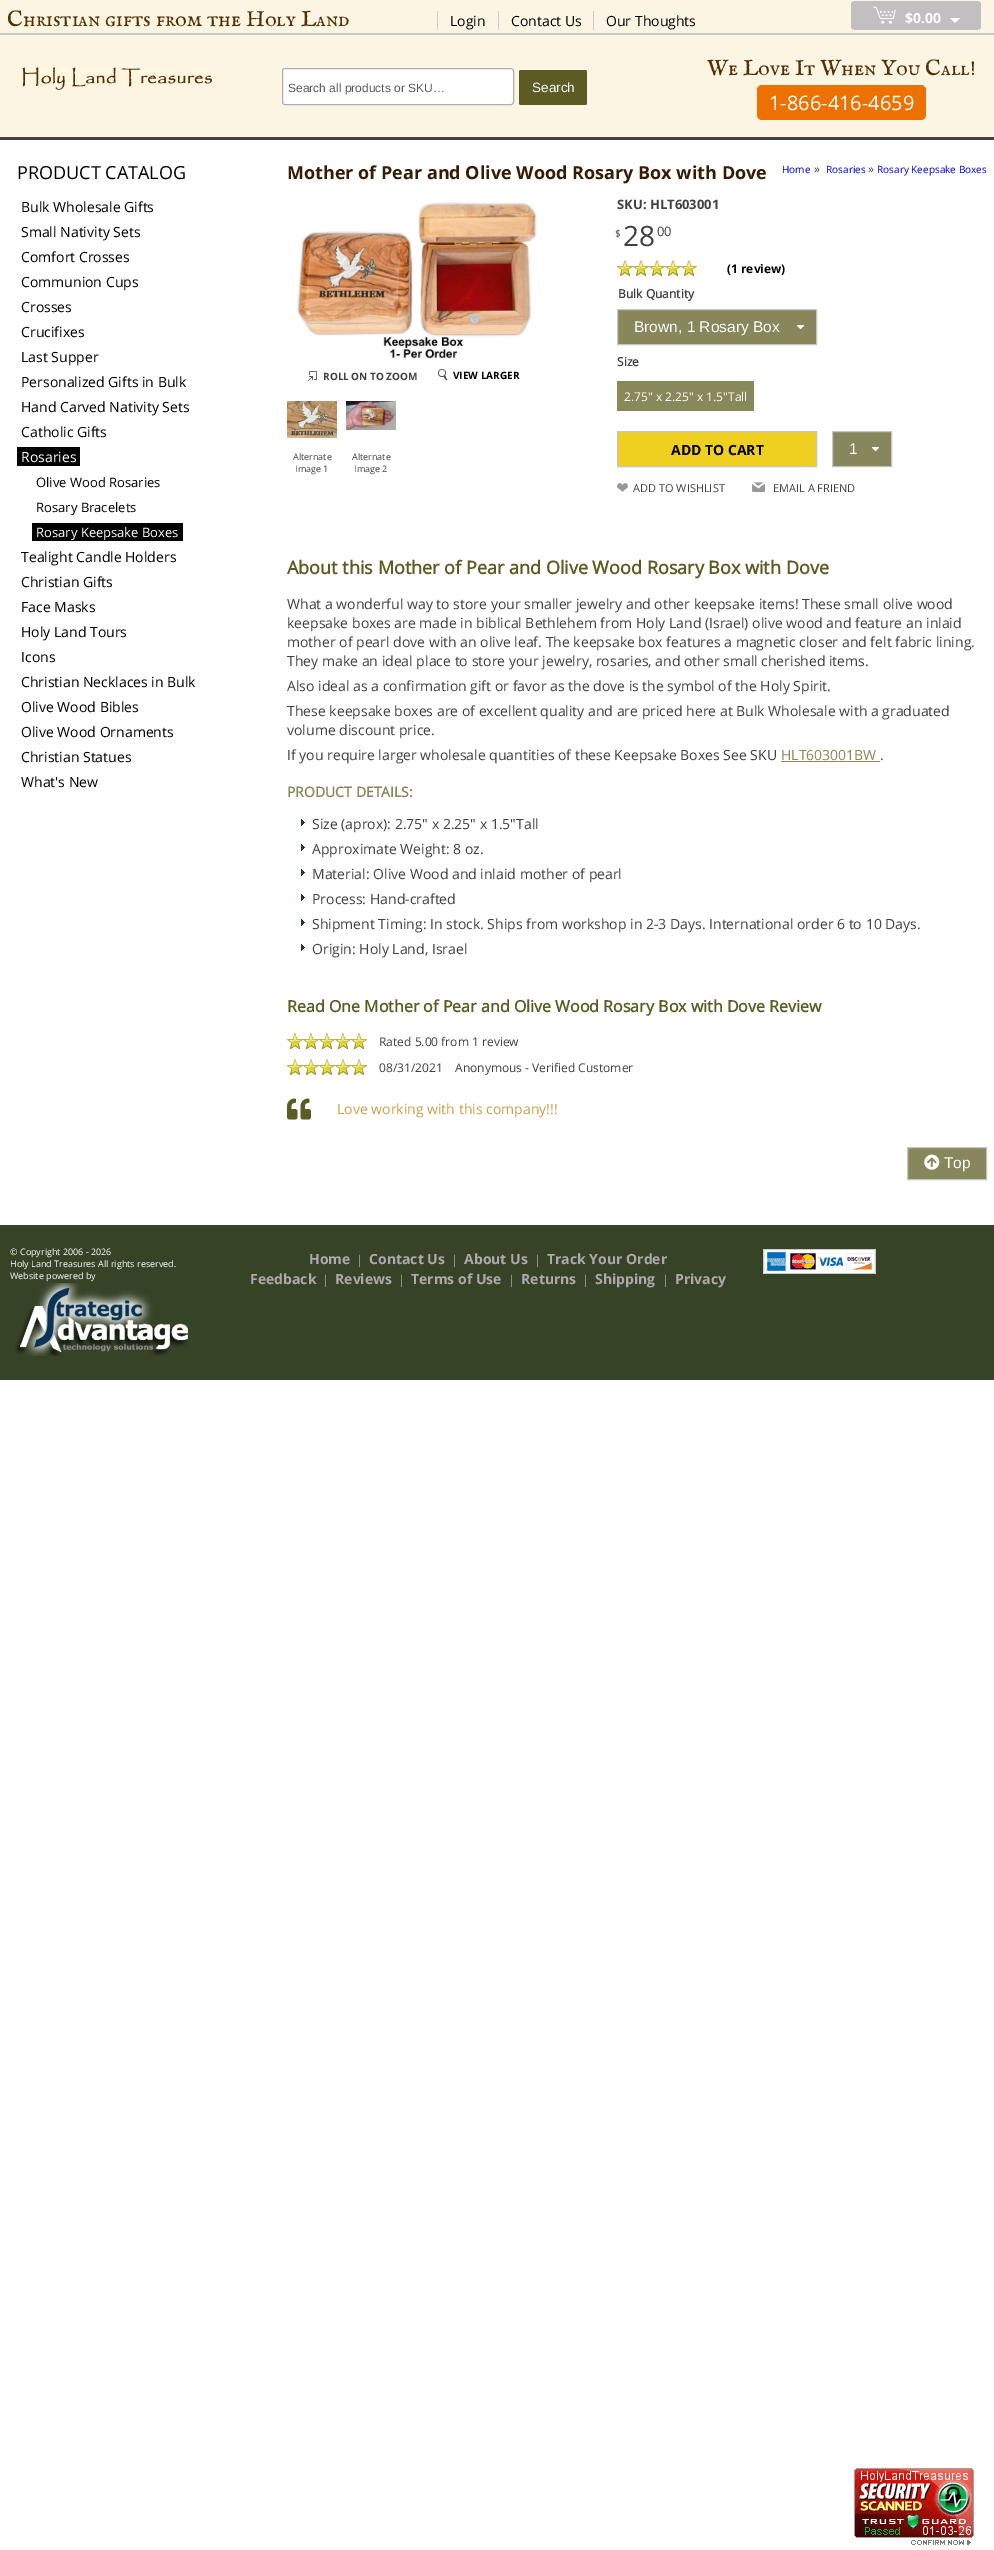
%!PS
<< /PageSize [994 2550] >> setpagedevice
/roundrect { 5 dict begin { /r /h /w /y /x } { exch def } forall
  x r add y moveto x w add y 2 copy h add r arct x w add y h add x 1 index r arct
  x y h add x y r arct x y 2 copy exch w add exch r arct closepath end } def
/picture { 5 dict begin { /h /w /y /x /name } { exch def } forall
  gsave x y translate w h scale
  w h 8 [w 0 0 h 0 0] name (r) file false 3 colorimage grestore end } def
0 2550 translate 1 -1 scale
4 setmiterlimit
1 setgray
0 0 994 2550 rectfill
0.992 0.961 0.89 setrgbcolor
0 0 994 137 rectfill
0.255 setgray
0 137 994 3 rectfill
0.792 0.776 0.765 setrgbcolor
0 33 994 2 rectfill
/IMFELLEnglishSC-Regular [22 0 0 -22 0 0] selectfont
0.325 0.18 0.008 setrgbcolor
7 26 moveto (Christian gifts from the Holy Land) show
0.808 setgray
437 11 1 19 rectfill
/OpenSans-Regular [14 0 0 -14 0 0] selectfont
0 setgray
450 26 moveto (Login) show
0.808 setgray
498 11 1 19 rectfill
0 setgray
511 26 moveto (Contact Us) show
0.808 setgray
593 11 1 19 rectfill
0 setgray
606 26 moveto (Our Thoughts) show
0.753 setgray
851 1 130 29 4 roundrect fill
(img1.rgb) 873 6 23 18 picture
/OpenSans-Bold [14 0 0 -14 0 0] selectfont
1 setgray
905 23 moveto ($0.00) show
newpath 950 18 moveto 960 18 lineto 955 23 lineto closepath fill
(img2.rgb) 22 67 190 23 picture
282.5 68.5 231 36 2.5 roundrect gsave fill grestore
0.686 setgray
stroke
/LiberationSans-Regular [12 0 0 -12 0 0] selectfont
0.353 setgray
288 92 moveto (Search all products or SKU…) show
0.357 0.357 0.137 setrgbcolor
519 70 68 35 2 roundrect fill
/LiberationSans-Regular [13.5 0 0 -13.5 0 0] selectfont
1 setgray
532 92 moveto (Search) show
/IMFELLEnglishSC-Regular [22 0 0 -22 0 0] selectfont
0.325 0.18 0.008 setrgbcolor
707 75 moveto (We Love It When You Call!) show
0.929 0.443 0 setrgbcolor
757 85 169 35 5 roundrect fill
/OpenSans-Regular [20 0 0 -20 0 0] selectfont
1 setgray
769 110 moveto (1-866-416-4659) show
/OpenSans-Regular [18 0 0 -18 0 0] selectfont
0 setgray
17 179 moveto (PRODUCT CATALOG) show
/OpenSans-Regular [14 0 0 -14 0 0] selectfont
21 212 moveto (Bulk Wholesale Gifts) show
21 237 moveto (Small Nativity Sets) show
21 262 moveto (Comfort Crosses) show
21 287 moveto (Communion Cups) show
21 312 moveto (Crosses) show
21 337 moveto (Crucifixes) show
21 362 moveto (Last Supper) show
21 387 moveto (Personalized Gifts in Bulk) show
21 412 moveto (Hand Carved Nativity Sets) show
21 437 moveto (Catholic Gifts) show
17 447 63 19 rectfill
1 setgray
21 462 moveto (Rosaries) show
/OpenSans-Regular [13 0 0 -13 0 0] selectfont
0 setgray
36 487 moveto (Olive Wood Rosaries) show
36 512 moveto (Rosary Bracelets) show
32 523 151 18 rectfill
1 setgray
36 537 moveto (Rosary Keepsake Boxes) show
/OpenSans-Regular [14 0 0 -14 0 0] selectfont
0 setgray
21 562 moveto (Tealight Candle Holders) show
21 587 moveto (Christian Gifts) show
21 612 moveto (Face Masks) show
21 637 moveto (Holy Land Tours) show
21 662 moveto (Icons) show
21 687 moveto (Christian Necklaces in Bulk) show
21 712 moveto (Olive Wood Bibles) show
21 737 moveto (Olive Wood Ornaments) show
21 762 moveto (Christian Statues) show
21 787 moveto (What's New) show
/OpenSans-Bold [18 0 0 -18 0 0] selectfont
0.216 0.11 0.012 setrgbcolor
287 179 moveto (Mother of Pear and Olive Wood Rosary Box with Dove) show
(img3.rgb) 296 202 241 157 picture
(img4.rgb) 308 371 9 10 picture
/OpenSans-Bold [10 0 0 -10 0 0] selectfont
0.255 setgray
323 380 moveto (ROLL ON TO ZOOM) show
(img5.rgb) 438 369 10 12 picture
0 setgray
453 379 moveto (VIEW LARGER) show
/OpenSans-Bold [13 0 0 -13 0 0] selectfont
0.255 setgray
617 209 moveto (SKU: HLT603001) show
/OpenSans-Regular [10 0 0 -10 0 0] selectfont
615 237 moveto ($) show
/OpenSans-Regular [28 0 0 -28 0 0] selectfont
623 246 moveto (28) show
/OpenSans-Regular [13 0 0 -13 0 0] selectfont
657 236 moveto (00) show
(img6.rgb) 617 260 80 16 picture
(img7.rgb) 617 260 80 16 picture
/OpenSans-Bold [12 0 0 -12 0 0] selectfont
0 setgray
727 273 moveto (\(1 review\)) show
/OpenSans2-Bold [12 0 0 -12 0 0] selectfont
0.255 setgray
618 298 moveto (Bulk Quantity) show
0.529 0.529 0.357 setrgbcolor
newpath 617.5 309.5 moveto 816.5 309.5 lineto 816.5 344.5 lineto 617.5 344.5 lineto closepath gsave fill grestore
0.773 setgray
stroke
/LiberationSans-Regular [15.5 0 0 -15.5 0 0] selectfont
1 setgray
634 332 moveto (Brown, 1 Rosary Box) show
(img8.rgb) 797 325 7 4 picture
/OpenSans2-Bold [12 0 0 -12 0 0] selectfont
0.255 setgray
617 366 moveto (Size) show
0.533 0.533 0.357 setrgbcolor
617 381 137 30 rectfill
/OpenSans-Regular [12 0 0 -12 0 0] selectfont
1 setgray
624 401 moveto (2.75" x 2.25" x 1.5"Tall) show
0.937 0.812 0.122 setrgbcolor
newpath 617.5 431.5 moveto 816.5 431.5 lineto 816.5 466.5 lineto 617.5 466.5 lineto closepath gsave fill grestore
0.773 setgray
stroke
/OpenSans-Bold [14 0 0 -14 0 0] selectfont
0 setgray
671 455 moveto (ADD TO CART) show
0.529 0.529 0.357 setrgbcolor
newpath 832.5 431.5 moveto 891.5 431.5 lineto 891.5 466.5 lineto 832.5 466.5 lineto closepath gsave fill grestore
0.773 setgray
stroke
/LiberationSans-Regular [15.5 0 0 -15.5 0 0] selectfont
1 setgray
849 454 moveto (1) show
(img8.rgb) 872 447 7 4 picture
(img9.rgb) 617 483 11 9 picture
/OpenSans-Regular [11 0 0 -11 0 0] selectfont
0.255 setgray
633 492 moveto (ADD TO WISHLIST) show
(img10.rgb) 752 482 13 10 picture
773 492 moveto (EMAIL A FRIEND) show
(img11.rgb) 287 401 50 37 picture
/OpenSans-Regular [9 0 0 -9 0 0] selectfont
293 460 moveto (Alternate) show
295 472 moveto (Image 1) show
(img12.rgb) 346 401 50 29 picture
352 460 moveto (Alternate) show
354 472 moveto (Image 2) show
/OpenSans-Regular [10 0 0 -10 0 0] selectfont
0 0 0.933 setrgbcolor
782 173 moveto (Home) show
/OpenSans-Regular [12 0 0 -12 0 0] selectfont
0.255 setgray
814 173 moveto (») show
/OpenSans-Regular [10 0 0 -10 0 0] selectfont
0 0 0.933 setrgbcolor
826 173 moveto (Rosaries) show
/OpenSans-Regular [12 0 0 -12 0 0] selectfont
0.255 setgray
868 173 moveto (») show
/OpenSans-Regular [10 0 0 -10 0 0] selectfont
0 0 0.933 setrgbcolor
877 173 moveto (Rosary Keepsake Boxes) show
/OpenSans2-Bold [18 0 0 -18 0 0] selectfont
0.357 0.357 0.137 setrgbcolor
287 574 moveto (About this Mother of Pear and Olive Wood Rosary Box with Dove) show
/OpenSans-Regular [14 0 0 -14 0 0] selectfont
0.255 setgray
287 609 moveto (What a wonderful way to store your smaller jewelry and other keepsake items! These small olive wood) show
287 628 moveto (keepsake boxes are made in biblical Bethlehem from Holy Land \(Israel\) olive wood and feature an inlaid) show
287 647 moveto (mother of pearl dove with an olive leaf. The keepsake box features a magnetic closer and felt fabric lining.) show
287 666 moveto (They make an ideal place to store your jewelry, rosaries, and other small cherished items.) show
287 691 moveto (Also ideal as a confirmation gift or favor as the dove is the symbol of the Holy Spirit.) show
287 716 moveto (These keepsake boxes are of excellent quality and are priced here at Bulk Wholesale with a graduated) show
287 735 moveto (volume discount price.) show
287 760 moveto (If you require larger wholesale quantities of these Keepsake Boxes See SKU) show
0.533 0.533 0.357 setrgbcolor
781 760 moveto (HLT603001BW) show
781 761 99 1 rectfill
0.255 setgray
880 760 moveto (.) show
/OpenSans2-Bold [14 0 0 -14 0 0] selectfont
0.533 0.533 0.357 setrgbcolor
287 797 moveto (PRODUCT DETAILS:) show
(img13.rgb) 301 819 4 7 picture
/OpenSans-Regular [14 0 0 -14 0 0] selectfont
0.255 setgray
312 829 moveto (Size \(aprox\): 2.75" x 2.25" x 1.5"Tall) show
(img13.rgb) 301 844 4 7 picture
312 854 moveto (Approximate Weight: 8 oz.) show
(img13.rgb) 301 869 4 7 picture
312 879 moveto (Material: Olive Wood and inlaid mother of pearl) show
(img13.rgb) 301 894 4 7 picture
312 904 moveto (Process: Hand-crafted) show
(img13.rgb) 301 919 4 7 picture
312 929 moveto (Shipment Timing: In stock. Ships from workshop in 2-3 Days. International order 6 to 10 Days.) show
(img13.rgb) 301 944 4 7 picture
312 954 moveto (Origin: Holy Land, Israel) show
/OpenSans2-Bold [16 0 0 -16 0 0] selectfont
0.357 0.357 0.137 setrgbcolor
287 1012 moveto (Read One Mother of Pear and Olive Wood Rosary Box with Dove Review) show
(img6.rgb) 287 1033 80 16 picture
(img7.rgb) 287 1033 80 16 picture
/OpenSans-Regular [12 0 0 -12 0 0] selectfont
0.255 setgray
379 1046 moveto (Rated 5.00 from 1 review) show
(img6.rgb) 287 1059 80 16 picture
(img7.rgb) 287 1059 80 16 picture
379 1072 moveto (08/31/2021) show
455 1072 moveto (Anonymous - Verified Customer) show
(img14.rgb) 287 1098 24 22 picture
/OpenSans-Regular [14 0 0 -14 0 0] selectfont
0.808 0.62 0.29 setrgbcolor
337 1114 moveto (Love working with this company!!!) show
0.529 0.529 0.357 setrgbcolor
newpath 907.5 1147.5 moveto 986.5 1147.5 lineto 986.5 1179.5 lineto 907.5 1179.5 lineto closepath gsave fill grestore
0.773 setgray
stroke
(img15.rgb) 924 1154 16 16 picture
/LiberationSans-Regular [15.5 0 0 -15.5 0 0] selectfont
1 setgray
944 1168 moveto (Top) show
0.212 0.263 0.153 setrgbcolor
0 1225 994 155 rectfill
/OpenSans-Regular [9 0 0 -9 0 0] selectfont
1 setgray
10 1255 moveto (© Copyright 2006 - 2026) show
10 1267 moveto (Holy Land Treasures All rights reserved.) show
10 1279 moveto (Website powered by) show
(img16.rgb) 15 1283 173 73 picture
/OpenSans-Bold [14 0 0 -14 0 0] selectfont
0.671 setgray
309 1264 moveto (Home) show
/OpenSans-Regular [12 0 0 -12 0 0] selectfont
356 1264 moveto (|) show
/OpenSans-Bold [14 0 0 -14 0 0] selectfont
369 1264 moveto (Contact Us) show
/OpenSans-Regular [12 0 0 -12 0 0] selectfont
451 1264 moveto (|) show
/OpenSans-Bold [14 0 0 -14 0 0] selectfont
464 1264 moveto (About Us) show
/OpenSans-Regular [12 0 0 -12 0 0] selectfont
534 1264 moveto (|) show
/OpenSans-Bold [14 0 0 -14 0 0] selectfont
547 1264 moveto (Track Your Order) show
250 1284 moveto (Feedback) show
/OpenSans-Regular [12 0 0 -12 0 0] selectfont
322 1284 moveto (|) show
/OpenSans-Bold [14 0 0 -14 0 0] selectfont
335 1284 moveto (Reviews) show
/OpenSans-Regular [12 0 0 -12 0 0] selectfont
398 1284 moveto (|) show
/OpenSans-Bold [14 0 0 -14 0 0] selectfont
411 1284 moveto (Terms of Use) show
/OpenSans-Regular [12 0 0 -12 0 0] selectfont
508 1284 moveto (|) show
/OpenSans-Bold [14 0 0 -14 0 0] selectfont
521 1284 moveto (Returns) show
/OpenSans-Regular [12 0 0 -12 0 0] selectfont
582 1284 moveto (|) show
/OpenSans-Bold [14 0 0 -14 0 0] selectfont
595 1284 moveto (Shipping) show
/OpenSans-Regular [12 0 0 -12 0 0] selectfont
662 1284 moveto (|) show
/OpenSans-Bold [14 0 0 -14 0 0] selectfont
675 1284 moveto (Privacy) show
(img17.rgb) 854 2468 120 77 picture
(img18.rgb) 763 1249 113 25 picture
showpage
